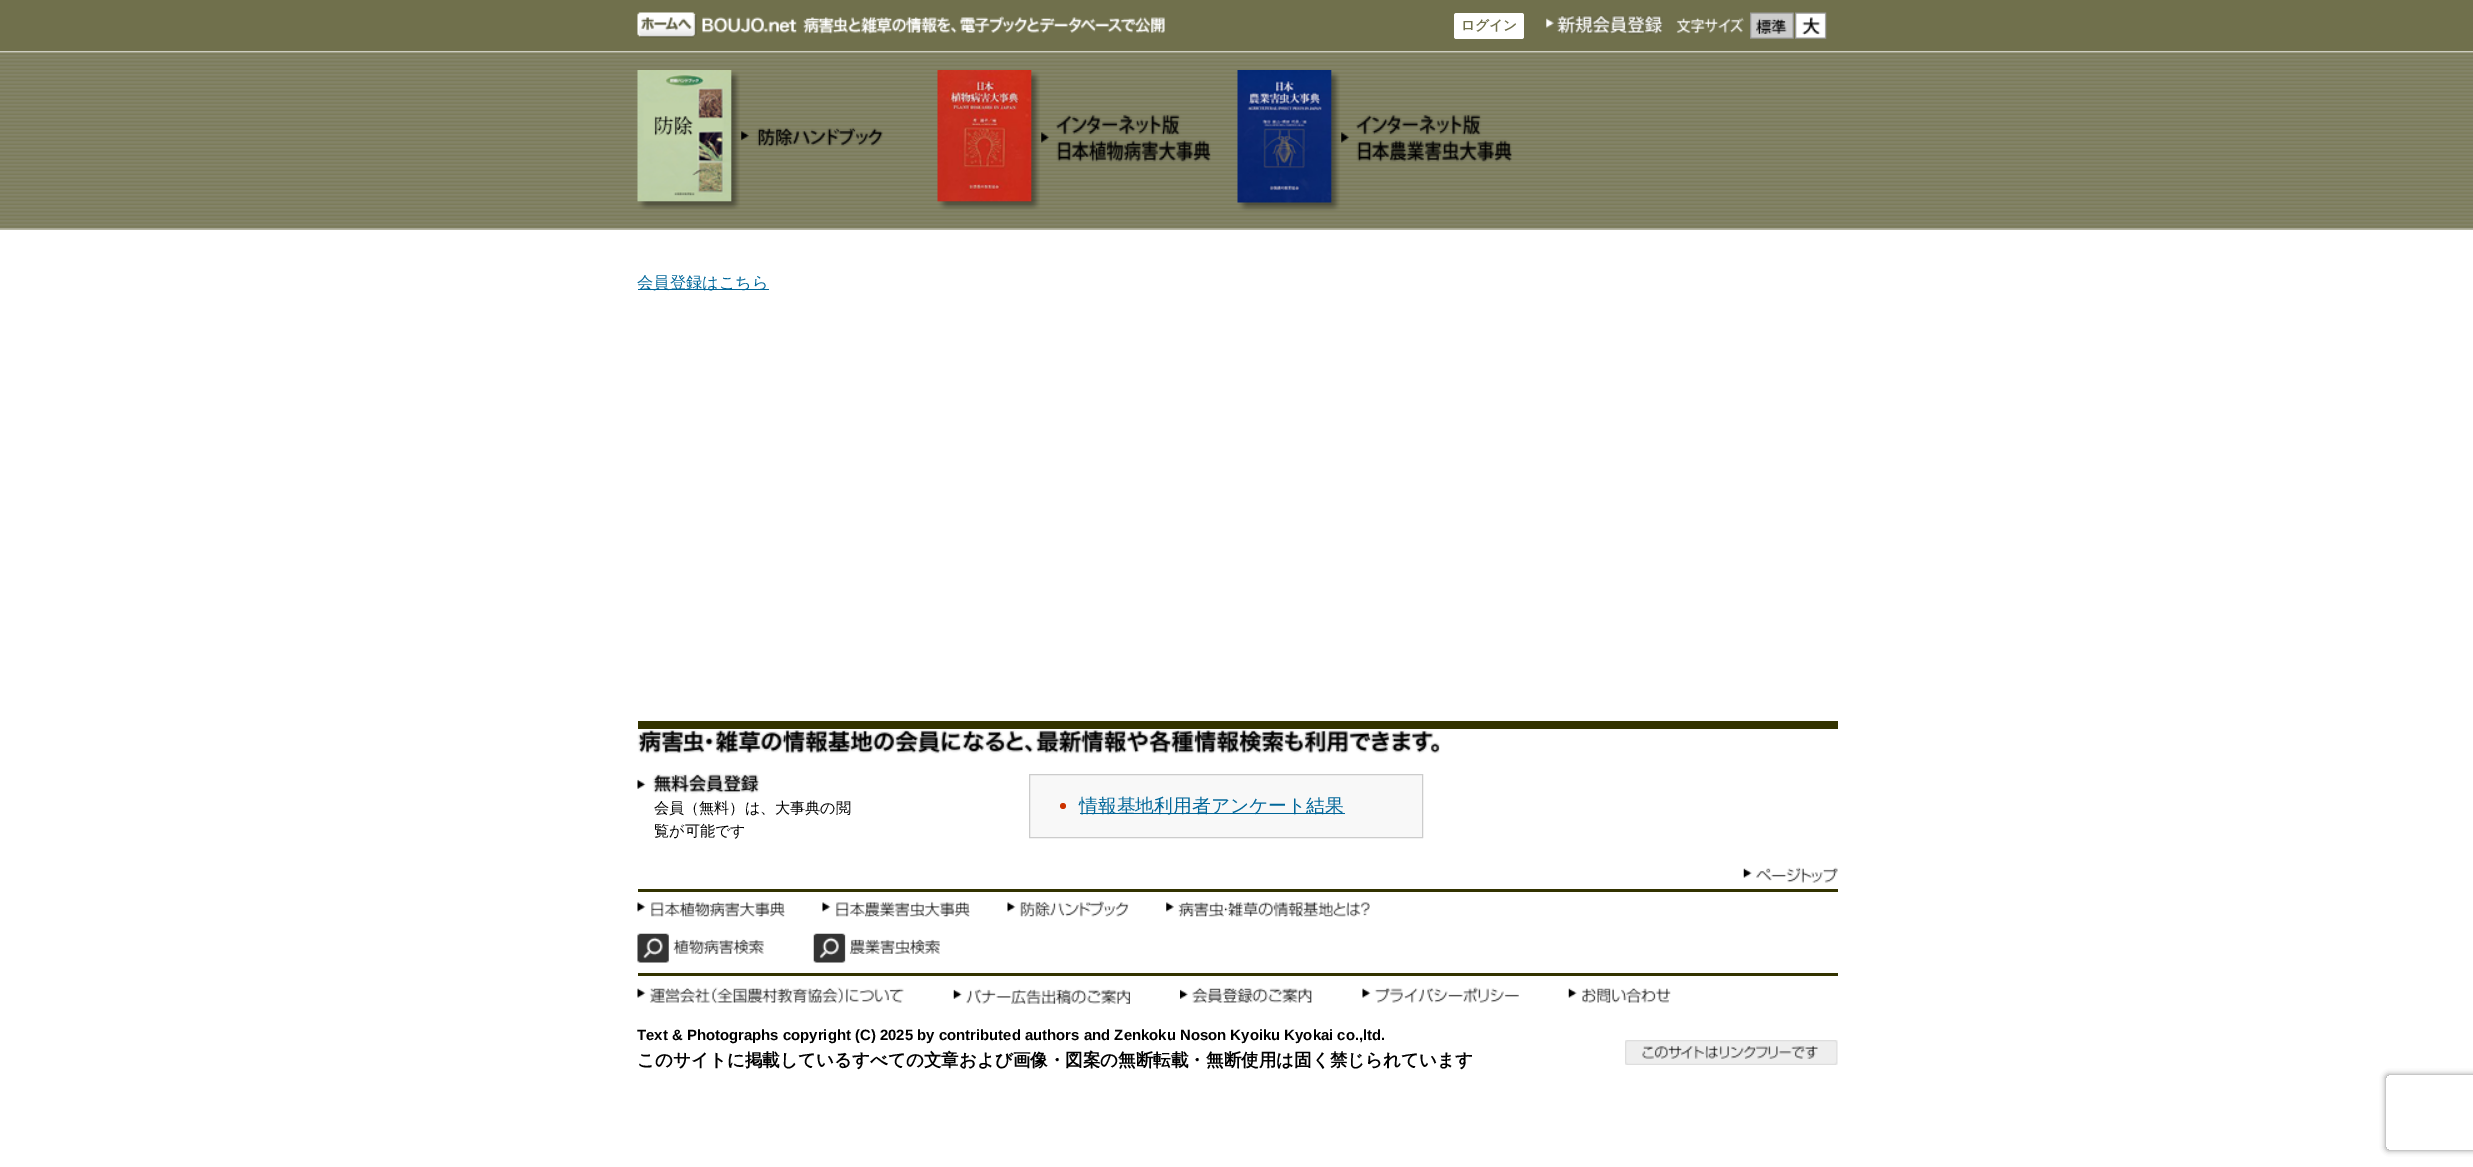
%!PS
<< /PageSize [2473 1167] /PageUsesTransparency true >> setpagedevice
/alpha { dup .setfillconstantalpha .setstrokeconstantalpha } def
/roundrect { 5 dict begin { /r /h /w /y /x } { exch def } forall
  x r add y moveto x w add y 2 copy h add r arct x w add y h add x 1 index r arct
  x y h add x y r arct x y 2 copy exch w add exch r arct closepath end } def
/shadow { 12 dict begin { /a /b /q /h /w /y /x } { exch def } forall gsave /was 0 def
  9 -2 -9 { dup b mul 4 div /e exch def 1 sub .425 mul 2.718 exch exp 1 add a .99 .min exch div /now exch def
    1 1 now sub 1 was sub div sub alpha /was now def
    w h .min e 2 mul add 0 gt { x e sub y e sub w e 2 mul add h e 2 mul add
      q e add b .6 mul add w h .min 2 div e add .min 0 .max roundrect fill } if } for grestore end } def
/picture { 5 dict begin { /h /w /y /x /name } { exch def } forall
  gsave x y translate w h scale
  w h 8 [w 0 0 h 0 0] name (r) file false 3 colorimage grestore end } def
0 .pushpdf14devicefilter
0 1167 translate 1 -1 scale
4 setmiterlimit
1 setgray
0 0 2473 1167 rectfill
0.439 0.439 0.298 setrgbcolor
0 0 2473 51 rectfill
(img1.rgb) 637 12 60 26 picture
(img2.rgb) 702 17 95 16 picture
(img3.rgb) 803 16 362 18 picture
1 setgray
1454 13 70 26 2.5 roundrect fill
/WenQuanYiZenHei-Bold [13.75 0 0 -13.75 0 0] selectfont
0.439 0.439 0.298 setrgbcolor
1461 30 moveto (ログイン) show
(img4.rgb) 1546 15 117 20 picture
(img5.rgb) 1676 17 68 17 picture
(img6.rgb) 1750 12 44 27 picture
(img7.rgb) 1795 12 32 27 picture
(img8.rgb) 0 51 2473 178 picture
(img9.rgb) 637 70 103 140 picture
(img10.rgb) 741 127 142 20 picture
(img11.rgb) 937 70 103 140 picture
(img12.rgb) 1041 114 170 48 picture
(img13.rgb) 1237 70 103 141 picture
(img14.rgb) 1341 114 171 48 picture
(img15.rgb) 0 228 2473 2 picture
0 0.4 0.6 setrgbcolor
638 289 131 1 rectfill
/WenQuanYiZenHei-Medium [16.25 0 0 -16.25 0 0] selectfont
637 288 moveto (会員登録はこちら) show
0.2 0.2 0 setrgbcolor
638 721 1200 8 rectfill
(img16.rgb) 637 730 803 24 picture
(img17.rgb) 637 773 123 21 picture
/WenQuanYiZenHei-Medium [15.1 0 0 -15.1 0 0] selectfont
0 setgray
654 813 moveto (会員（無料）は、大事典の閲) show
654 836 moveto (覧が可能です) show
0.973 setgray
newpath 1029.5 774.5 moveto 1422.5 774.5 lineto 1422.5 837.5 lineto 1029.5 837.5 lineto closepath gsave fill grestore
0.8 setgray
stroke
0.8 0.2 0 setrgbcolor
newpath 1063 806 3 0 360 arc closepath fill
0 0.4 0.6 setrgbcolor
1080 813 265 1 rectfill
/WenQuanYiZenHei-Medium [18.8 0 0 -18.8 0 0] selectfont
1079 812 moveto (情報基地利用者アンケート結果) show
(img18.rgb) 1743 867 95 16 picture
0.2 0.2 0 setrgbcolor
638 889 1200 3 rectfill
(img19.rgb) 637 901 148 16 picture
(img20.rgb) 822 901 148 16 picture
(img21.rgb) 1007 901 122 16 picture
(img22.rgb) 1166 901 204 16 picture
(img23.rgb) 637 933 127 30 picture
(img24.rgb) 813 933 127 30 picture
638 973 1200 3 rectfill
(img25.rgb) 637 987 267 17 picture
(img26.rgb) 953 988 177 16 picture
(img27.rgb) 1180 987 132 16 picture
(img28.rgb) 1362 987 157 16 picture
(img29.rgb) 1568 988 103 15 picture
/LiberationSans-Bold [14.92 0 0 -14.92 0 0] selectfont
0 setgray
637 1040 moveto (Text & Photographs copyright \(C\) 2025 by contributed authors and Zenkoku Noson Kyoiku Kyokai co.,ltd.) show
/WenQuanYiZenHei-Bold [17.55 0 0 -17.55 0 0] selectfont
637 1066 moveto (このサイトに掲載しているすべての文章および画像・図案の無断転載・無断使用は固く禁じられています) show
(img30.rgb) 1625 1040 213 25 picture
gsave
newpath 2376 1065 moveto 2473 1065 lineto 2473 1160 lineto 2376 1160 lineto closepath 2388.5 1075 moveto 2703.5 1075 lineto 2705 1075 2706 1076 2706 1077.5 curveto 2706 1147.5 lineto 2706 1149 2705 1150 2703.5 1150 curveto 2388.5 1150 lineto 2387 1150 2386 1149 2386 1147.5 curveto 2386 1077.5 lineto 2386 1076 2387 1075 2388.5 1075 curveto closepath eoclip newpath
0.502 setgray
2386 1075 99 75 2.5 3 1 shadow
grestore
.poppdf14devicefilter showpage
